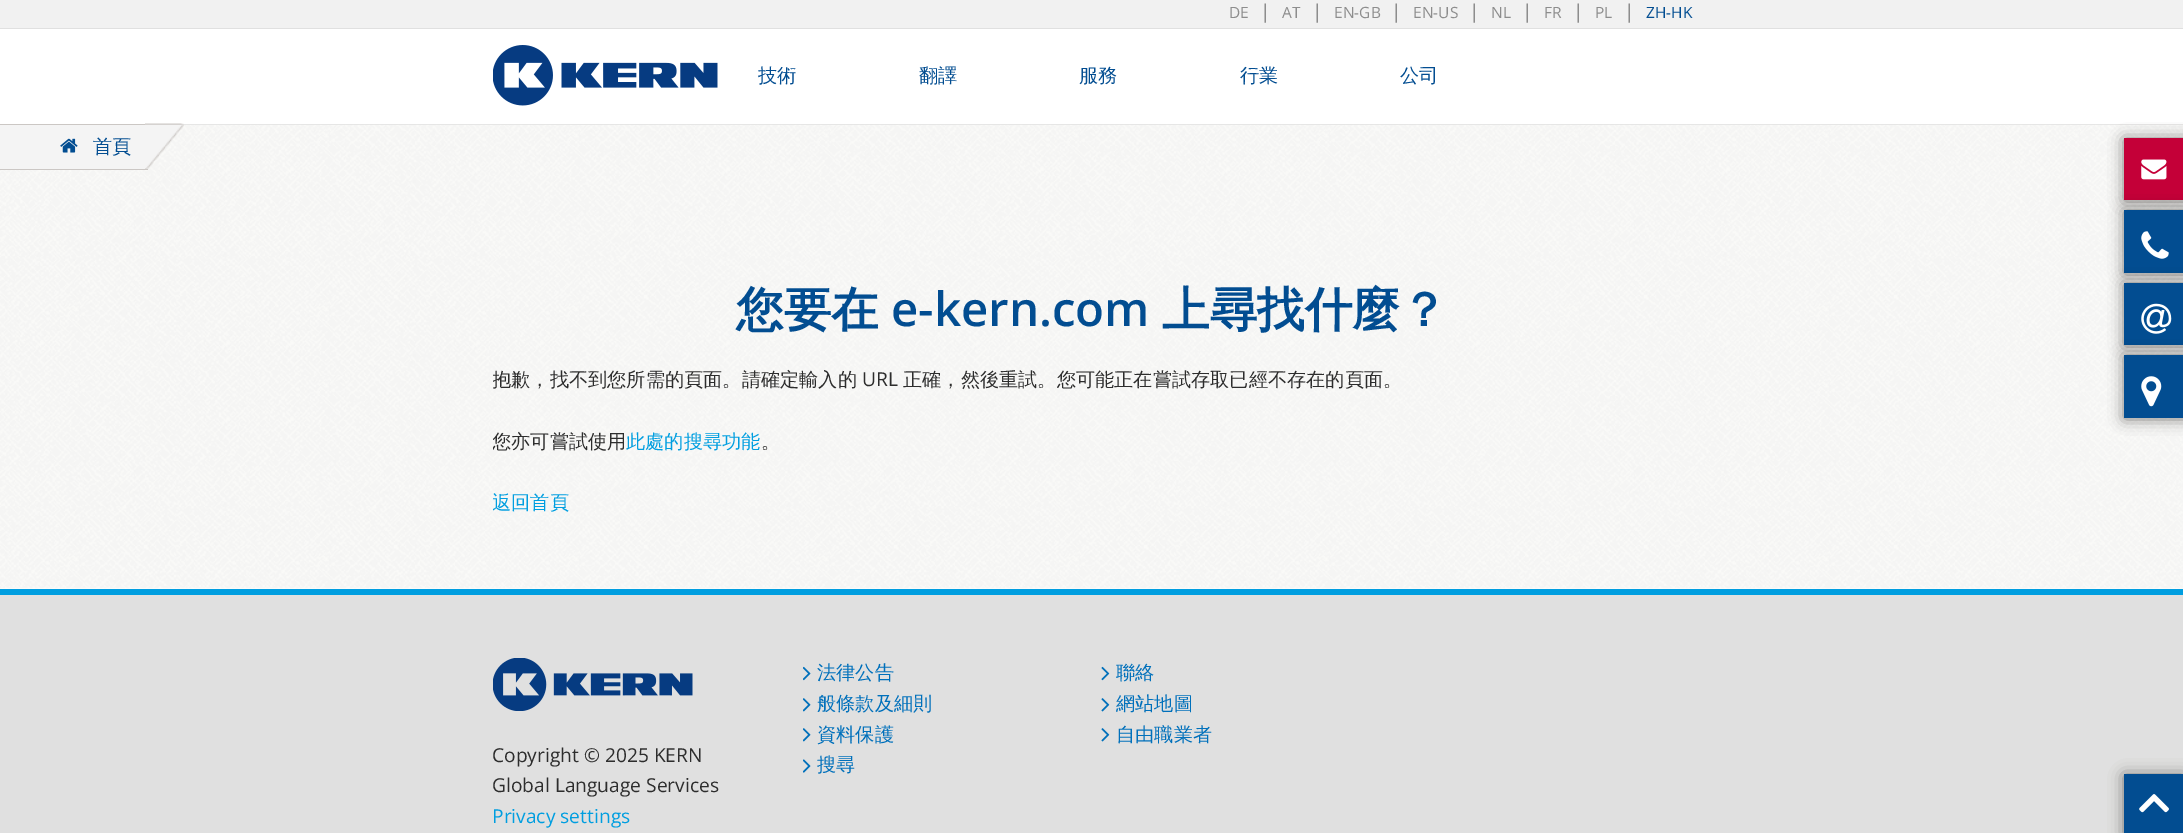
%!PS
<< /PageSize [2183 833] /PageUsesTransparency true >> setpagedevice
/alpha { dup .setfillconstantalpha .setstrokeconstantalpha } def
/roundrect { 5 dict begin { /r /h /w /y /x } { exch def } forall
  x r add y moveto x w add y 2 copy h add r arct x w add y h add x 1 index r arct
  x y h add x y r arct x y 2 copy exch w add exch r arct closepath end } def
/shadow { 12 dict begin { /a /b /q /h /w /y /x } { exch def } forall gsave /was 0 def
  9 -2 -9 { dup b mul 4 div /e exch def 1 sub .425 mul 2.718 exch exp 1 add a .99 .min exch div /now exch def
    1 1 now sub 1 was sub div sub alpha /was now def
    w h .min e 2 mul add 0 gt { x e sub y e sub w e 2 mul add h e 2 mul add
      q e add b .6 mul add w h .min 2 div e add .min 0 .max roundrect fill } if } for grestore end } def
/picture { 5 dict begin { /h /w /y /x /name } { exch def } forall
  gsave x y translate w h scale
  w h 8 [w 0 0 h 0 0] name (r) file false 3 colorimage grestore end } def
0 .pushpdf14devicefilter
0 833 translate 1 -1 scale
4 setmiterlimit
1 setgray
0 0 2183 833 rectfill
0.945 setgray
0 0 2183 28 rectfill
/OpenSans-Regular [15.5 0 0 -15.5 0 0] selectfont
0.553 setgray
1229 18 moveto (DE) show
/OpenSans-Regular [19.2 0 0 -19.2 0 0] selectfont
1260 18 moveto (|) show
/OpenSans-Regular [15.5 0 0 -15.5 0 0] selectfont
1282 18 moveto (AT) show
/OpenSans-Regular [19.2 0 0 -19.2 0 0] selectfont
1312 18 moveto (|) show
/OpenSans-Regular [15.5 0 0 -15.5 0 0] selectfont
1334 18 moveto (EN-GB) show
/OpenSans-Regular [19.2 0 0 -19.2 0 0] selectfont
1391 18 moveto (|) show
/OpenSans-Regular [15.5 0 0 -15.5 0 0] selectfont
1413 18 moveto (EN-US) show
/OpenSans-Regular [19.2 0 0 -19.2 0 0] selectfont
1469 18 moveto (|) show
/OpenSans-Regular [15.5 0 0 -15.5 0 0] selectfont
1491 18 moveto (NL) show
/OpenSans-Regular [19.2 0 0 -19.2 0 0] selectfont
1522 18 moveto (|) show
/OpenSans-Regular [15.5 0 0 -15.5 0 0] selectfont
1544 18 moveto (FR) show
/OpenSans-Regular [19.2 0 0 -19.2 0 0] selectfont
1573 18 moveto (|) show
/OpenSans-Regular [15.5 0 0 -15.5 0 0] selectfont
1595 18 moveto (PL) show
/OpenSans-Regular [19.2 0 0 -19.2 0 0] selectfont
1624 18 moveto (|) show
/OpenSans-Regular [15.5 0 0 -15.5 0 0] selectfont
0.008 0.302 0.569 setrgbcolor
1646 18 moveto (ZH-HK) show
0.878 setgray
0 28 2183 1 rectfill
181 124 2002 1 rectfill
(img1.rgb) 493 45 225 61 picture
/WenQuanYiZenHei-Medium [19.2 0 0 -19.2 0 0] selectfont
0.008 0.302 0.569 setrgbcolor
758 82 moveto (技術) show
919 82 moveto (翻譯) show
1079 82 moveto (服務) show
1240 82 moveto (行業) show
1400 82 moveto (公司) show
(img2.rgb) 0 124 2183 465 picture
0.957 setgray
0 125 148 44 rectfill
0.796 0.78 0.769 setrgbcolor
0 124 148 1 rectfill
0 169 148 1 rectfill
(img3.rgb) 60 138 18 15 picture
0.008 0.302 0.569 setrgbcolor
93 153 moveto (首頁) show
(img4.rgb) 145 123 39 46 picture
0.027 0.012 0 setrgbcolor
2124 139 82 62 0 7.5 0.5 shadow
0.769 0 0.22 setrgbcolor
2124 138 59 62 rectfill
(img5.rgb) 2141 159 26 21 picture
0.027 0.012 0 setrgbcolor
2124 211 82 63 0 7.5 0.5 shadow
0.008 0.302 0.569 setrgbcolor
2124 210 59 63 rectfill
(img6.rgb) 2141 231 28 28 picture
0.027 0.012 0 setrgbcolor
2124 284 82 62 0 7.5 0.5 shadow
0.008 0.302 0.569 setrgbcolor
2124 283 59 62 rectfill
(img7.rgb) 2141 303 31 31 picture
0.027 0.012 0 setrgbcolor
2124 356 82 63 0 7.5 0.5 shadow
0.008 0.302 0.569 setrgbcolor
2124 355 59 63 rectfill
(img8.rgb) 2141 376 21 31 picture
/WenQuanYiZenHei-Bold [47.5 0 0 -47.5 0 0] selectfont
736 326 moveto (您要在) show
/OpenSans-SemiBold [47.5 0 0 -47.5 0 0] selectfont
891 326 moveto (e-kern.com) show
/WenQuanYiZenHei-Bold [47.5 0 0 -47.5 0 0] selectfont
1162 326 moveto (上尋找什麼？) show
gsave
493 365 1200 184 rectclip
/WenQuanYiZenHei-Medium [19.2 0 0 -19.2 0 0] selectfont
0.176 setgray
492 386 moveto (抱歉，找不到您所需的頁面。請確定輸入的) show
grestore
/OpenSans-Regular [19.2 0 0 -19.2 0 0] selectfont
0.176 setgray
862 386 moveto (URL) show
/WenQuanYiZenHei-Medium [19.2 0 0 -19.2 0 0] selectfont
903 386 moveto (正確，然後重試。您可能正在嘗試存取已經不存在的頁面。) show
gsave
493 365 1200 184 rectclip
492 448 moveto (您亦可嘗試使用) show
grestore
0 0.62 0.878 setrgbcolor
626 448 moveto (此處的搜尋功能) show
0.176 setgray
761 448 moveto (。) show
gsave
493 365 1200 184 rectclip
0 0.62 0.878 setrgbcolor
492 509 moveto (返回首頁) show
grestore
0.878 setgray
0 595 2183 238 rectfill
0 0.62 0.878 setrgbcolor
0 589 2183 6 rectfill
(img9.rgb) 803 666 8 15 picture
0 0.439 0.733 setrgbcolor
817 679 moveto (法律公告) show
(img10.rgb) 1101 666 9 15 picture
1116 679 moveto (聯絡) show
(img11.rgb) 803 698 8 14 picture
817 710 moveto (般條款及細則) show
(img12.rgb) 1101 698 9 14 picture
1116 710 moveto (網站地圖) show
(img11.rgb) 803 728 8 14 picture
817 741 moveto (資料保護) show
(img12.rgb) 1101 728 9 14 picture
1116 741 moveto (自由職業者) show
(img13.rgb) 803 759 8 14 picture
817 771 moveto (搜尋) show
(img14.rgb) 493 658 200 53 picture
/OpenSans-Regular [19.2 0 0 -19.2 0 0] selectfont
0.176 setgray
492 762 moveto (Copyright © 2025 KERN) show
492 792 moveto (Global Language Services) show
0 0.62 0.878 setrgbcolor
492 823 moveto (Privacy settings) show
0.027 0.012 0 setrgbcolor
2124 775 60 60 0 7.5 0.5 shadow
0.008 0.302 0.569 setrgbcolor
2124 774 59 59 rectfill
(img15.rgb) 2139 794 30 19 picture
.poppdf14devicefilter showpage
